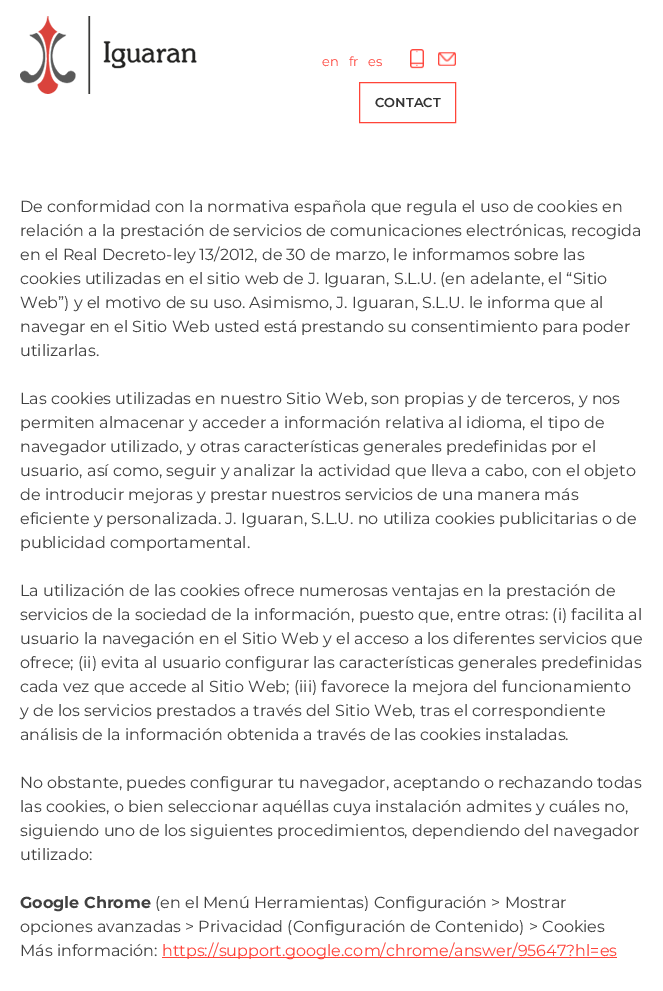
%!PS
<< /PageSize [663 991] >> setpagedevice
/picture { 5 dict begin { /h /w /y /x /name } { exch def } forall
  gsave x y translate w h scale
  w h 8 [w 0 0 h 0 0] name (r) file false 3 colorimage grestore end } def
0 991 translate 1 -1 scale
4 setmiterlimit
1 setgray
0 0 663 991 rectfill
(img1.rgb) 20 16 177 78 picture
/Montserrat-Regular [13 0 0 -13 0 0] selectfont
0.996 0.259 0.224 setrgbcolor
322 66 moveto (en) show
349 66 moveto (fr) show
368 66 moveto (es) show
(img2.rgb) 410 49 14 20 picture
(img3.rgb) 438 52 18 14 picture
1 0.267 0.22 setrgbcolor
359.5 82.5 96 40 rectstroke
/Montserrat-SemiBold [13 0 0 -13 0 0] selectfont
0.2 setgray
375 107 moveto (CONTACT) show
/Montserrat-Regular [16 0 0 -16 0 0] selectfont
0.251 setgray
20 212 moveto (De conformidad con la normativa española que regula el uso de cookies en) show
20 236 moveto (relación a la prestación de servicios de comunicaciones electrónicas, recogida) show
20 260 moveto (en el Real Decreto-ley 13/2012, de 30 de marzo, le informamos sobre las) show
20 284 moveto (cookies utilizadas en el sitio web de J. Iguaran, S.L.U. \(en adelante, el “Sitio) show
20 308 moveto (Web”\) y el motivo de su uso. Asimismo, J. Iguaran, S.L.U. le informa que al) show
20 332 moveto (navegar en el Sitio Web usted está prestando su consentimiento para poder) show
20 356 moveto (utilizarlas.) show
20 404 moveto (Las cookies utilizadas en nuestro Sitio Web, son propias y de terceros, y nos) show
20 428 moveto (permiten almacenar y acceder a información relativa al idioma, el tipo de) show
20 452 moveto (navegador utilizado, y otras características generales predefinidas por el) show
20 476 moveto (usuario, así como, seguir y analizar la actividad que lleva a cabo, con el objeto) show
20 500 moveto (de introducir mejoras y prestar nuestros servicios de una manera más) show
20 524 moveto (eficiente y personalizada. J. Iguaran, S.L.U. no utiliza cookies publicitarias o de) show
20 548 moveto (publicidad comportamental.) show
20 596 moveto (La utilización de las cookies ofrece numerosas ventajas en la prestación de) show
20 620 moveto (servicios de la sociedad de la información, puesto que, entre otras: \(i\) facilita al) show
20 644 moveto (usuario la navegación en el Sitio Web y el acceso a los diferentes servicios que) show
20 668 moveto (ofrece; \(ii\) evita al usuario configurar las características generales predefinidas) show
20 692 moveto (cada vez que accede al Sitio Web; \(iii\) favorece la mejora del funcionamiento) show
20 716 moveto (y de los servicios prestados a través del Sitio Web, tras el correspondiente) show
20 740 moveto (análisis de la información obtenida a través de las cookies instaladas.) show
20 788 moveto (No obstante, puedes configurar tu navegador, aceptando o rechazando todas) show
20 812 moveto (las cookies, o bien seleccionar aquéllas cuya instalación admites y cuáles no,) show
20 836 moveto (siguiendo uno de los siguientes procedimientos, dependiendo del navegador) show
20 860 moveto (utilizado:) show
/Montserrat-Bold [16 0 0 -16 0 0] selectfont
20 908 moveto (Google Chrome) show
/Montserrat-Regular [16 0 0 -16 0 0] selectfont
155 908 moveto (\(en el Menú Herramientas\) Configuración > Mostrar) show
20 932 moveto (opciones avanzadas > Privacidad \(Configuración de Contenido\) > Cookies) show
20 956 moveto (Más información:) show
0.996 0.259 0.224 setrgbcolor
162 957 455 1 rectfill
162 956 moveto (https://support.google.com/chrome/answer/95647?hl=es) show
showpage
